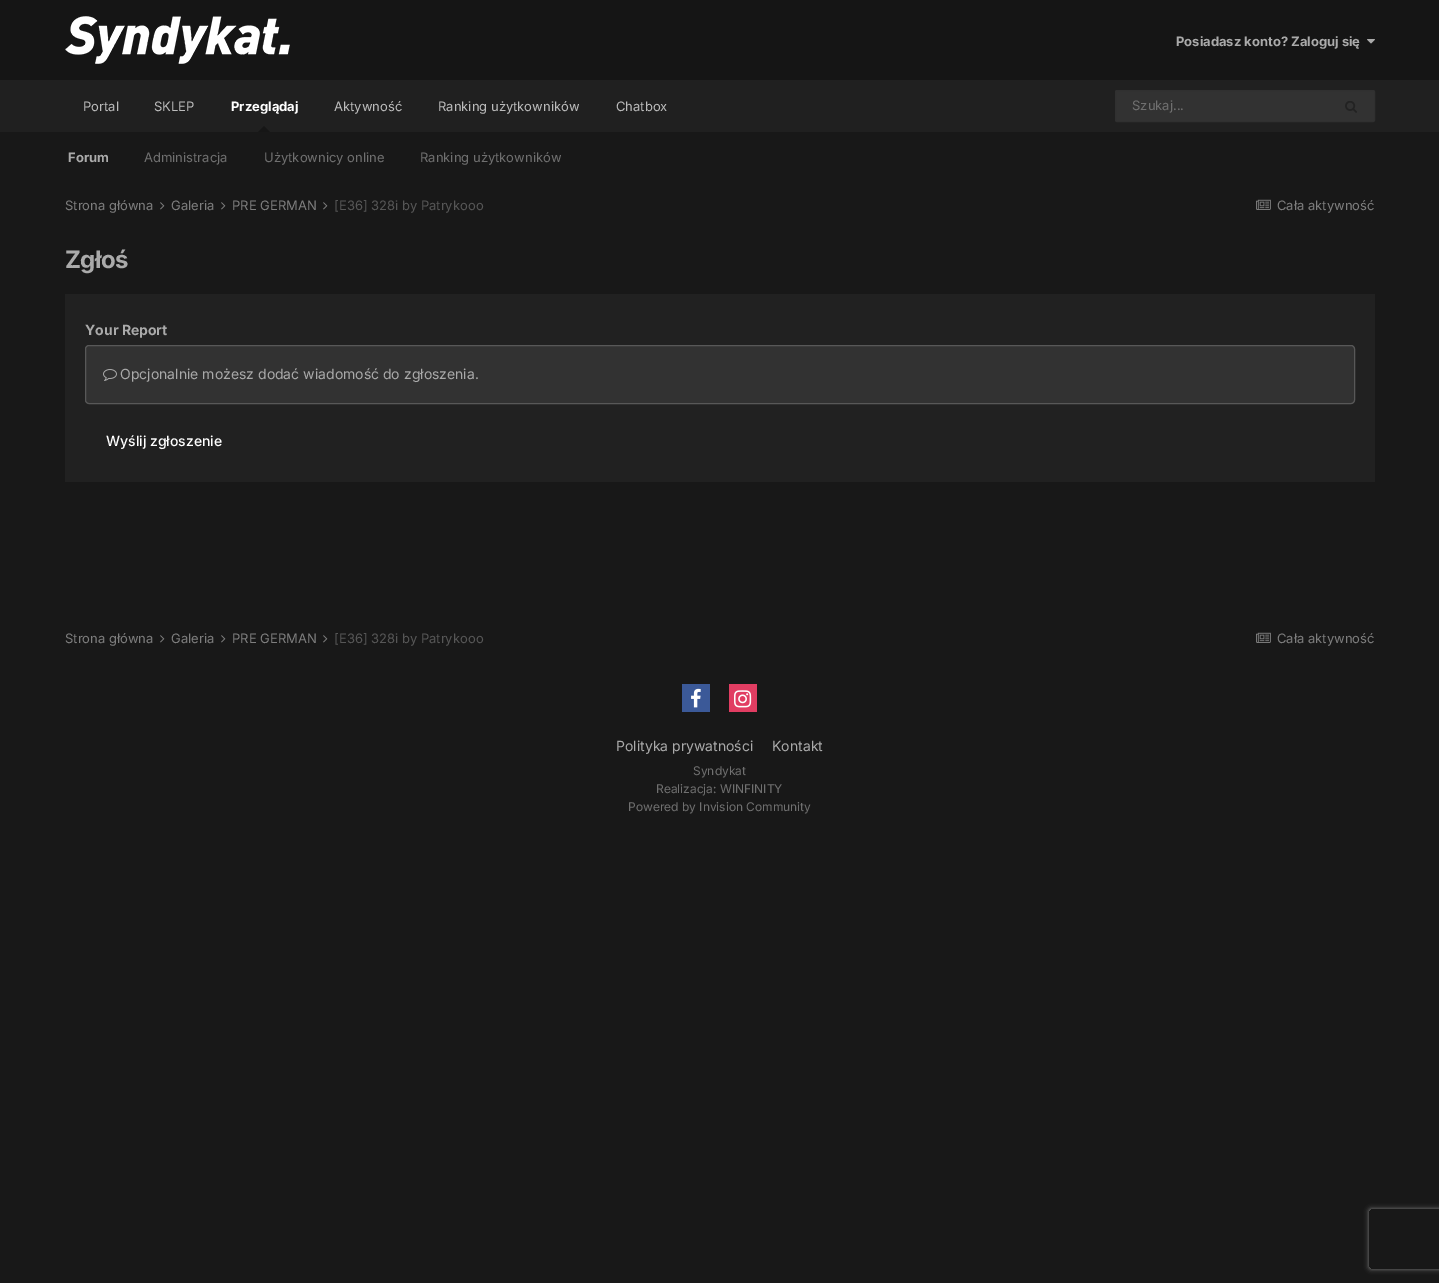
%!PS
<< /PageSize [1439 1283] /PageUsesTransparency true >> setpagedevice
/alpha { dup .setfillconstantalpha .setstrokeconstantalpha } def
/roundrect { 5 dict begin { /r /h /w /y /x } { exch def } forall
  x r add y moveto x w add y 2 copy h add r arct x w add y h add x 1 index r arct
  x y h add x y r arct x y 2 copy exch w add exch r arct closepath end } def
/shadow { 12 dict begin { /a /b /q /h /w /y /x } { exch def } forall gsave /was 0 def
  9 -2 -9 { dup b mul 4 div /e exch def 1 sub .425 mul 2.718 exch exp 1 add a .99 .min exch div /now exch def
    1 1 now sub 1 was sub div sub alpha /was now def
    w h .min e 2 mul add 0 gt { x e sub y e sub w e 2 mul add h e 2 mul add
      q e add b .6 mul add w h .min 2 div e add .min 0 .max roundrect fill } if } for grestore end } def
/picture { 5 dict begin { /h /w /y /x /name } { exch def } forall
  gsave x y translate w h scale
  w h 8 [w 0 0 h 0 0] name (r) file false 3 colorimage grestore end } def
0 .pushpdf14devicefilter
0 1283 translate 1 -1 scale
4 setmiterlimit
0.094 setgray
0 0 1439 1283 rectfill
0.082 setgray
0 0 1439 80 rectfill
(img1.rgb) 65 16 225 48 picture
/Inter-Bold [13 0 0 -13 0 0] selectfont
0.667 setgray
1176 46 moveto (Posiadasz konto? Zaloguj się) show
(img2.rgb) 1367 39 8 5 picture
0.125 setgray
0 80 1439 52 rectfill
1 setgray
231 111 moveto (Przeglądaj) show
0.086 setgray
newpath 270 132 moveto 258 132 lineto 264 126 lineto closepath fill
0.667 setgray
68 162 moveto (Forum) show
/Inter-Regular [13 0 0 -13 0 0] selectfont
0.439 setgray
144 162 moveto (Administracja) show
264 162 moveto (Użytkownicy online) show
420 162 moveto (Ranking użytkowników) show
0.737 setgray
83 111 moveto (Portal) show
154 111 moveto (SKLEP) show
334 111 moveto (Aktywność) show
438 111 moveto (Ranking użytkowników) show
616 111 moveto (Chatbox) show
0.196 setgray
1115.5 90.5 259 31 1.5 roundrect gsave fill grestore
0.188 setgray
stroke
0.439 setgray
1132 110 moveto (Szukaj...) show
(img3.rgb) 1345 101 12 12 picture
0.494 setgray
65 210 moveto (Strona główna) show
(img4.rgb) 160 202 5 8 picture
171 210 moveto (Galeria) show
(img4.rgb) 221 202 5 8 picture
232 210 moveto (PRE GERMAN) show
(img4.rgb) 323 202 5 8 picture
0.337 setgray
334 210 moveto ([E36] 328i by Patrykooo) show
(img5.rgb) 1256 199 15 11 picture
0.494 setgray
1277 210 moveto (Cała aktywność) show
/Inter-Bold [24 0 0 -24 0 0] selectfont
0.667 setgray
65 268 moveto -0.5 0 (Zgłoś) ashow
0.129 setgray
65 294 1310 188 rectfill
/Inter-Bold [14 0 0 -14 0 0] selectfont
0.667 setgray
85 335 moveto (Your Report) show
0.196 setgray
85.5 345.5 1269 58 3.5 roundrect gsave fill grestore
0.345 setgray
stroke
(img6.rgb) 103 369 14 12 picture
/Inter-Regular [14 0 0 -14 0 0] selectfont
0.667 setgray
120 379 moveto (Opcjonalnie możesz dodać wiadomość do zgłoszenia.) show
/Inter-Medium [14 0 0 -14 0 0] selectfont
1 setgray
106 446 moveto (Wyślij zgłoszenie) show
gsave
newpath 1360 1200 moveto 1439 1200 lineto 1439 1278 lineto 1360 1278 lineto closepath 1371 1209 moveto 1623 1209 lineto 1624 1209 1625 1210 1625 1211 curveto 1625 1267 lineto 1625 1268 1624 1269 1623 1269 curveto 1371 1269 lineto 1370 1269 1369 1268 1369 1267 curveto 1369 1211 lineto 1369 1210 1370 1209 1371 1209 curveto closepath eoclip newpath
0.502 setgray
1369 1209 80 60 2 2.5 1 shadow
grestore
/Inter-Regular [13 0 0 -13 0 0] selectfont
0.494 setgray
65 643 moveto (Strona główna) show
(img4.rgb) 160 635 5 8 picture
171 643 moveto (Galeria) show
(img4.rgb) 221 635 5 8 picture
232 643 moveto (PRE GERMAN) show
(img4.rgb) 323 635 5 8 picture
0.337 setgray
334 643 moveto ([E36] 328i by Patrykooo) show
(img5.rgb) 1256 632 15 11 picture
0.494 setgray
1277 643 moveto (Cała aktywność) show
0.231 0.349 0.596 setrgbcolor
682 684 28 28 rectfill
(img7.rgb) 691 688 10 20 picture
0.882 0.239 0.384 setrgbcolor
729 684 28 28 rectfill
(img8.rgb) 734 690 18 18 picture
/Inter-Regular [14 0 0 -14 0 0] selectfont
0.667 setgray
616 751 moveto (Polityka prywatności) show
772 751 moveto (Kontakt) show
/Inter-Regular [12 0 0 -12 0 0] selectfont
0.439 setgray
693 775 moveto (Syndykat) show
656 793 moveto (Realizacja: WINFINITY) show
628 811 moveto (Powered by Invision Community) show
.poppdf14devicefilter showpage
